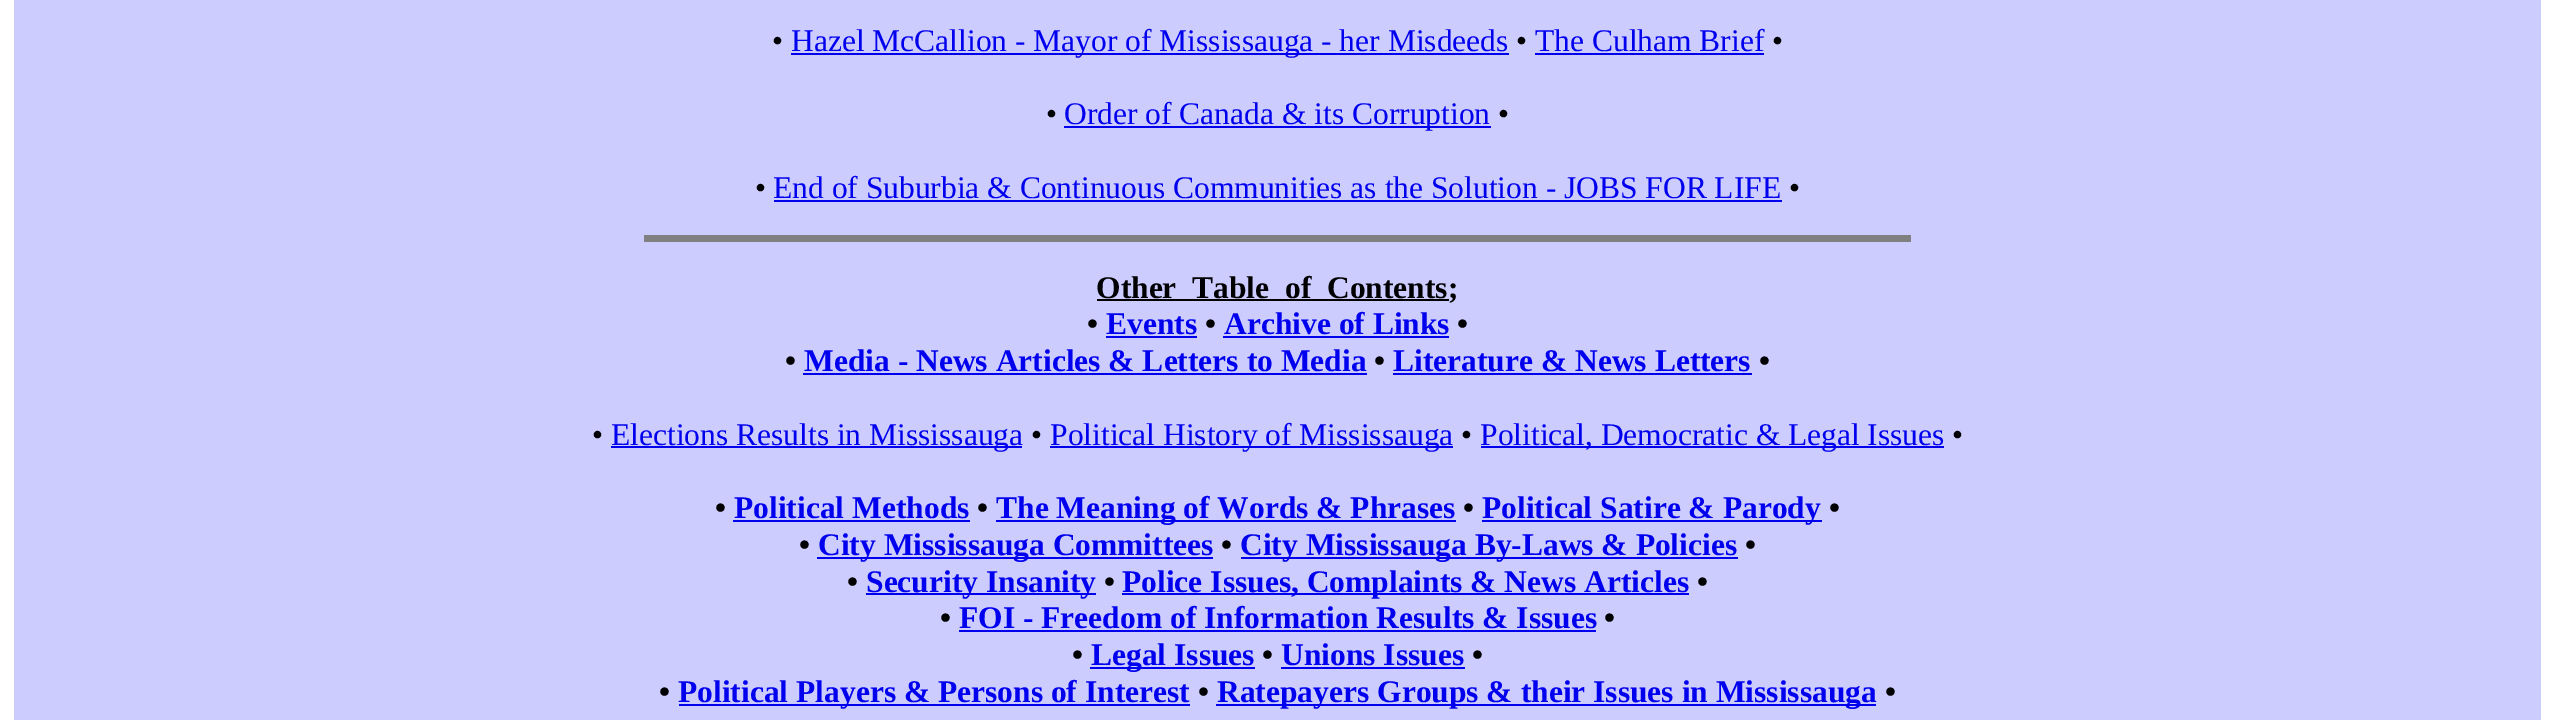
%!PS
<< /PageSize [2554 720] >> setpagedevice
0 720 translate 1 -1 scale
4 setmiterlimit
1 setgray
0 0 2554 720 rectfill
0.8 0.8 1 setrgbcolor
14 0 2527 720 rectfill
/LiberationSerif-Regular [31.5 0 0 -31.5 0 0] selectfont
0 setgray
772 51 moveto (•) show
0 0 0.933 setrgbcolor
791 53 718 2 rectfill
791 51 moveto (Hazel McCallion - Mayor of Mississauga - her Misdeeds) show
0 setgray
1516 51 moveto (•) show
0 0 0.933 setrgbcolor
1535 51 moveto (The Culham Brief) show
1535 53 229 2 rectfill
0 setgray
1772 51 moveto (•) show
1046 124 moveto (•) show
0 0 0.933 setrgbcolor
1064 126 427 2 rectfill
1064 124 moveto (Order of Canada & its Corruption) show
0 setgray
1498 124 moveto (•) show
755 198 moveto (•) show
0 0 0.933 setrgbcolor
773 198 moveto (End of Suburbia & Continuous Communities as the Solution - JOBS FOR LIFE) show
774 200 1008 2 rectfill
0 setgray
1789 198 moveto (•) show
0.502 setgray
644 235 1267 7 rectfill
0 setgray
1097 299 352 2 rectfill
/LiberationSerif-Bold [31.5 0 0 -31.5 0 0] selectfont
1096 298 moveto (Other  Table  of  Contents;) show
1087 334 moveto (•) show
0 0 0.933 setrgbcolor
1106 334 moveto (Events) show
1106 336 91 2 rectfill
0 setgray
1205 334 moveto (•) show
0 0 0.933 setrgbcolor
1224 334 moveto (Archive of Links) show
1223 336 226 2 rectfill
0 setgray
1457 334 moveto (•) show
785 371 moveto (•) show
0 0 0.933 setrgbcolor
804 371 moveto (Media - News Articles & Letters to Media) show
803 373 564 2 rectfill
0 setgray
1374 371 moveto (•) show
0 0 0.933 setrgbcolor
1393 371 moveto (Literature & News Letters) show
1393 373 359 2 rectfill
0 setgray
1759 371 moveto (•) show
/LiberationSerif-Regular [31.5 0 0 -31.5 0 0] selectfont
592 445 moveto (•) show
0 0 0.933 setrgbcolor
611 446 411 2 rectfill
611 445 moveto (Elections Results in Mississauga) show
0 setgray
1031 445 moveto (•) show
0 0 0.933 setrgbcolor
1050 446 403 2 rectfill
1050 445 moveto (Political History of Mississauga) show
0 setgray
1461 445 moveto (•) show
0 0 0.933 setrgbcolor
1481 446 463 2 rectfill
1480 445 moveto (Political, Democratic & Legal Issues) show
0 setgray
1952 445 moveto (•) show
/LiberationSerif-Bold [31.5 0 0 -31.5 0 0] selectfont
715 518 moveto (•) show
0 0 0.933 setrgbcolor
734 518 moveto (Political Methods) show
733 520 237 2 rectfill
0 setgray
977 518 moveto (•) show
0 0 0.933 setrgbcolor
996 520 460 2 rectfill
996 518 moveto (The Meaning of Words & Phrases) show
0 setgray
1463 518 moveto (•) show
0 0 0.933 setrgbcolor
1482 520 340 2 rectfill
1482 518 moveto (Political Satire & Parody) show
0 setgray
1829 518 moveto (•) show
799 555 moveto (•) show
0 0 0.933 setrgbcolor
817 557 396 2 rectfill
818 555 moveto (City Mississauga Committees) show
0 setgray
1221 555 moveto (•) show
0 0 0.933 setrgbcolor
1241 557 497 2 rectfill
1240 555 moveto (City Mississauga By-Laws & Policies) show
0 setgray
1745 555 moveto (•) show
847 592 moveto (•) show
0 0 0.933 setrgbcolor
866 593 230 2 rectfill
866 592 moveto (Security Insanity) show
0 setgray
1104 592 moveto (•) show
0 0 0.933 setrgbcolor
1122 593 567 2 rectfill
1122 592 moveto (Police Issues, Complaints & News Articles) show
0 setgray
1697 592 moveto (•) show
940 628 moveto (•) show
0 0 0.933 setrgbcolor
959 628 moveto (FOI - Freedom of Information Results & Issues) show
959 630 637 2 rectfill
0 setgray
1604 628 moveto (•) show
1072 665 moveto (•) show
0 0 0.933 setrgbcolor
1090 667 165 2 rectfill
1091 665 moveto (Legal Issues) show
0 setgray
1262 665 moveto (•) show
0 0 0.933 setrgbcolor
1281 665 moveto (Unions Issues) show
1281 667 184 2 rectfill
0 setgray
1472 665 moveto (•) show
659 702 moveto (•) show
0 0 0.933 setrgbcolor
679 704 511 2 rectfill
678 702 moveto (Political Players & Persons of Interest) show
0 setgray
1198 702 moveto (•) show
0 0 0.933 setrgbcolor
1216 704 660 2 rectfill
1217 702 moveto (Ratepayers Groups & their Issues in Mississauga) show
0 setgray
1885 702 moveto (•) show
showpage
